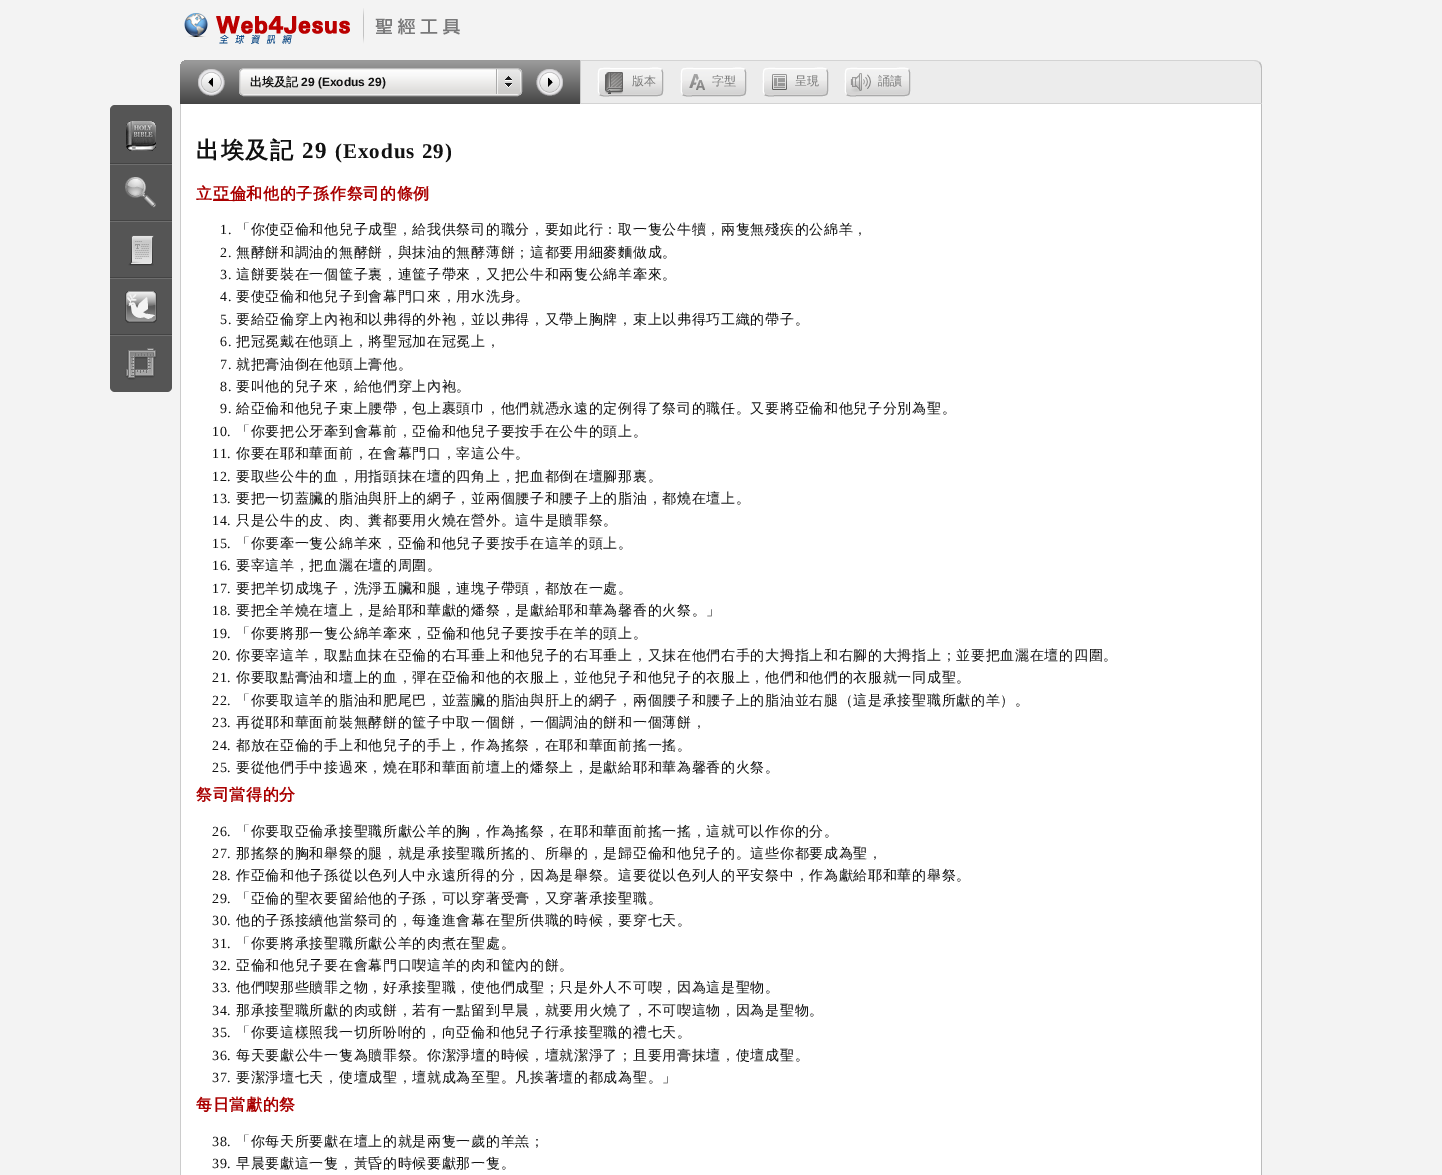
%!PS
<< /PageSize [1442 1175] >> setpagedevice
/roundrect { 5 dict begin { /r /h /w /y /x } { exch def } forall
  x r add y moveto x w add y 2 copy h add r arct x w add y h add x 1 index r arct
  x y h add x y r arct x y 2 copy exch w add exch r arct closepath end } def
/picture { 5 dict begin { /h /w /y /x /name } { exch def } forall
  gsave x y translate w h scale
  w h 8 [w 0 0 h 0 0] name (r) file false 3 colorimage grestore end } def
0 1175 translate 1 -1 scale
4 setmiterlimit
0.953 setgray
0 0 1442 1175 rectfill
(img1.rgb) 184 8 276 36 picture
0.8 setgray
newpath 181 101 moveto 180 100 lineto 180 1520 lineto 180 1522 181 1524 182 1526 curveto 183 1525 lineto 182 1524 181 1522 181 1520 curveto closepath fill
gsave newpath 188 60 moveto 580 60 lineto 580 104 lineto 180 104 lineto 180 68 lineto 180 63.5 183.5 60 188 60 curveto closepath clip newpath
<< /ShadingType 2 /ColorSpace /DeviceRGB /Coords [180 60 180 104] /Extend [true true] /Function << /FunctionType 3 /Domain [0 1] /Functions [<< /FunctionType 2 /Domain [0 1] /C0 [0.6 0.6 0.6] /C1 [0.6 0.6 0.6] /N 1 >> << /FunctionType 2 /Domain [0 1] /C0 [0.6 0.6 0.6] /C1 [0.267 0.267 0.267] /N 1 >>] /Bounds [0.05] /Encode [0 1 0 1] >> >> shfill grestore
(img2.rgb) 198 69 27 27 picture
(img3.rgb) 239 69 283 26 picture
0.733 setgray
239.5 68.5 282 27 4.5 roundrect stroke
/WenQuanYiZenHei-Bold [12 0 0 -12 0 0] selectfont
0.067 setgray
250 86 moveto (出埃及記) show
/LiberationSans-Bold [12 0 0 -12 0 0] selectfont
301 86 moveto (29 \(Exodus 29\)) show
(img4.rgb) 536 69 27 27 picture
0.733 setgray
newpath 1262 100 moveto 1261 101 lineto 1261 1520 lineto 1261 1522 1260 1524 1259 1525 curveto 1260 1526 lineto 1261 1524 1262 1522 1262 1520 curveto closepath fill
0.925 setgray
newpath 580 60 moveto 1254 60 lineto 1258.5 60 1262 63.5 1262 68 curveto 1262 104 lineto 580 104 lineto closepath fill
0.827 setgray
newpath 580 60 moveto 581 61 lineto 1254 61 lineto 1256 61 1258 62 1259 63 curveto 1260 62 lineto 1258 61 1256 60 1254 60 curveto closepath fill
0.733 setgray
newpath 1262 104 moveto 1262 68 lineto 1262 66 1261 64 1260 62 curveto 1259 63 lineto 1260 64 1261 66 1261 68 curveto 1261 103 lineto closepath fill
0.827 setgray
newpath 1262 104 moveto 1261 103 lineto 581 103 lineto 580 104 lineto closepath fill
0.8 setgray
newpath 580 60 moveto 580 104 lineto 581 103 lineto 581 61 lineto closepath fill
0.996 setgray
598 68 65 28 4 roundrect fill
(img5.rgb) 598 69 65 26 picture
0.667 setgray
newpath 661.5 69.5 moveto 663.5 72 662.5 79.5 662.5 82 curveto 662.5 97 664.5 95.5 649.5 95.5 curveto 611.5 95.5 lineto 611 95.5 602 97 599.5 94.5 curveto stroke
1 setgray
newpath 599.5 94.5 moveto 597.5 92 598.5 84.5 598.5 82 curveto 598.5 67 596.5 68.5 611.5 68.5 curveto 649.5 68.5 lineto 650 68.5 659 67 661.5 69.5 curveto stroke
/WenQuanYiZenHei-Medium [12 0 0 -12 0 0] selectfont
0.475 setgray
632 85 moveto (版本) show
0.996 setgray
681 68 65 28 4 roundrect fill
(img6.rgb) 681 69 65 26 picture
0.667 setgray
newpath 744.5 69.5 moveto 746.5 72 745.5 79.5 745.5 82 curveto 745.5 97 747.5 95.5 732.5 95.5 curveto 694.5 95.5 lineto 694 95.5 685 97 682.5 94.5 curveto stroke
1 setgray
newpath 682.5 94.5 moveto 680.5 92 681.5 84.5 681.5 82 curveto 681.5 67 679.5 68.5 694.5 68.5 curveto 732.5 68.5 lineto 733 68.5 742 67 744.5 69.5 curveto stroke
0.475 setgray
712 85 moveto (字型) show
0.996 setgray
763 68 65 28 4 roundrect fill
(img7.rgb) 763 69 65 26 picture
0.667 setgray
newpath 826.5 69.5 moveto 828.5 72 827.5 79.5 827.5 82 curveto 827.5 97 829.5 95.5 814.5 95.5 curveto 776.5 95.5 lineto 776 95.5 767 97 764.5 94.5 curveto stroke
1 setgray
newpath 764.5 94.5 moveto 762.5 92 763.5 84.5 763.5 82 curveto 763.5 67 761.5 68.5 776.5 68.5 curveto 814.5 68.5 lineto 815 68.5 824 67 826.5 69.5 curveto stroke
0.475 setgray
795 85 moveto (呈現) show
0.996 setgray
845 68 65 28 4 roundrect fill
(img8.rgb) 845 69 65 26 picture
0.667 setgray
newpath 908.5 69.5 moveto 910.5 72 909.5 79.5 909.5 82 curveto 909.5 97 911.5 95.5 896.5 95.5 curveto 858.5 95.5 lineto 858 95.5 849 97 846.5 94.5 curveto stroke
1 setgray
newpath 846.5 94.5 moveto 844.5 92 845.5 84.5 845.5 82 curveto 845.5 67 843.5 68.5 858.5 68.5 curveto 896.5 68.5 lineto 897 68.5 906 67 908.5 69.5 curveto stroke
0.475 setgray
878 85 moveto (誦讀) show
0.333 setgray
110 105 62 287 5 roundrect fill
(img9.rgb) 126 121 30 30 picture
0.267 setgray
110 163 62 1 rectfill
0.431 setgray
110 164 62 1 rectfill
(img10.rgb) 125 177 31 31 picture
0.267 setgray
110 220 62 1 rectfill
0.431 setgray
110 221 62 1 rectfill
(img11.rgb) 128 235 26 31 picture
0.267 setgray
110 277 62 1 rectfill
0.431 setgray
110 278 62 1 rectfill
(img12.rgb) 125 291 32 32 picture
0.267 setgray
110 334 62 1 rectfill
0.431 setgray
110 335 62 1 rectfill
(img13.rgb) 125 348 32 32 picture
1 setgray
181 104 1080 1071 rectfill
/WenQuanYiZenHei-Bold [23 0 0 -23 0 0] selectfont
0.067 setgray
196 158 moveto 1.5 0 (出埃及記) ashow
/LiberationSerif-Bold [23 0 0 -23 0 0] selectfont
302 158 moveto 1.5 0 (29) ashow
/LiberationSerif-Bold [21 0 0 -21 0 0] selectfont
335 158 moveto 1 0 (\(Exodus 29\)) ashow
/WenQuanYiZenHei-Bold [16 0 0 -16 0 0] selectfont
0.667 0 0 setrgbcolor
196 199 moveto 0.7 0 (立) ashow
213 200 33 1 rectfill
213 199 moveto 0.7 0 (亞倫和他的子孫作祭司的條例) ashow
/LiberationSerif-Regular [14 0 0 -14 0 0] selectfont
0.067 setgray
220 234 moveto 0.7 0 (1.) ashow
/WenQuanYiZenHei-Medium [14 0 0 -14 0 0] selectfont
236 234 moveto 0.7 0 (「你使亞倫和他兒子成聖，給我供祭司的職分，要如此行：取一隻公牛犢，兩隻無殘疾的公綿羊，) ashow
/LiberationSerif-Regular [14 0 0 -14 0 0] selectfont
220 257 moveto 0.7 0 (2.) ashow
/WenQuanYiZenHei-Medium [14 0 0 -14 0 0] selectfont
236 257 moveto 0.7 0 (無酵餅和調油的無酵餅，與抹油的無酵薄餅；這都要用細麥麵做成。) ashow
/LiberationSerif-Regular [14 0 0 -14 0 0] selectfont
220 279 moveto 0.7 0 (3.) ashow
/WenQuanYiZenHei-Medium [14 0 0 -14 0 0] selectfont
236 279 moveto 0.7 0 (這餅要裝在一個筐子裏，連筐子帶來，又把公牛和兩隻公綿羊牽來。) ashow
/LiberationSerif-Regular [14 0 0 -14 0 0] selectfont
220 301 moveto 0.7 0 (4.) ashow
/WenQuanYiZenHei-Medium [14 0 0 -14 0 0] selectfont
236 301 moveto 0.7 0 (要使亞倫和他兒子到會幕門口來，用水洗身。) ashow
/LiberationSerif-Regular [14 0 0 -14 0 0] selectfont
220 324 moveto 0.7 0 (5.) ashow
/WenQuanYiZenHei-Medium [14 0 0 -14 0 0] selectfont
236 324 moveto 0.7 0 (要給亞倫穿上內袍和以弗得的外袍，並以弗得，又帶上胸牌，束上以弗得巧工織的帶子。) ashow
/LiberationSerif-Regular [14 0 0 -14 0 0] selectfont
220 346 moveto 0.7 0 (6.) ashow
/WenQuanYiZenHei-Medium [14 0 0 -14 0 0] selectfont
236 346 moveto 0.7 0 (把冠冕戴在他頭上，將聖冠加在冠冕上，) ashow
/LiberationSerif-Regular [14 0 0 -14 0 0] selectfont
220 369 moveto 0.7 0 (7.) ashow
/WenQuanYiZenHei-Medium [14 0 0 -14 0 0] selectfont
236 369 moveto 0.7 0 (就把膏油倒在他頭上膏他。) ashow
/LiberationSerif-Regular [14 0 0 -14 0 0] selectfont
220 391 moveto 0.7 0 (8.) ashow
/WenQuanYiZenHei-Medium [14 0 0 -14 0 0] selectfont
236 391 moveto 0.7 0 (要叫他的兒子來，給他們穿上內袍。) ashow
/LiberationSerif-Regular [14 0 0 -14 0 0] selectfont
220 413 moveto 0.7 0 (9.) ashow
/WenQuanYiZenHei-Medium [14 0 0 -14 0 0] selectfont
236 413 moveto 0.7 0 (給亞倫和他兒子束上腰帶，包上裹頭巾，他們就憑永遠的定例得了祭司的職任。又要將亞倫和他兒子分別為聖。) ashow
/LiberationSerif-Regular [14 0 0 -14 0 0] selectfont
212 436 moveto 0.7 0 (10.) ashow
/WenQuanYiZenHei-Medium [14 0 0 -14 0 0] selectfont
236 436 moveto 0.7 0 (「你要把公牙牽到會幕前，亞倫和他兒子要按手在公牛的頭上。) ashow
/LiberationSerif-Regular [14 0 0 -14 0 0] selectfont
212 458 moveto 0.7 0 (11.) ashow
/WenQuanYiZenHei-Medium [14 0 0 -14 0 0] selectfont
236 458 moveto 0.7 0 (你要在耶和華面前，在會幕門口，宰這公牛。) ashow
/LiberationSerif-Regular [14 0 0 -14 0 0] selectfont
212 481 moveto 0.7 0 (12.) ashow
/WenQuanYiZenHei-Medium [14 0 0 -14 0 0] selectfont
236 481 moveto 0.7 0 (要取些公牛的血，用指頭抹在壇的四角上，把血都倒在壇腳那裏。) ashow
/LiberationSerif-Regular [14 0 0 -14 0 0] selectfont
212 503 moveto 0.7 0 (13.) ashow
/WenQuanYiZenHei-Medium [14 0 0 -14 0 0] selectfont
236 503 moveto 0.7 0 (要把一切蓋臟的脂油與肝上的網子，並兩個腰子和腰子上的脂油，都燒在壇上。) ashow
/LiberationSerif-Regular [14 0 0 -14 0 0] selectfont
212 525 moveto 0.7 0 (14.) ashow
/WenQuanYiZenHei-Medium [14 0 0 -14 0 0] selectfont
236 525 moveto 0.7 0 (只是公牛的皮、肉、糞都要用火燒在營外。這牛是贖罪祭。) ashow
/LiberationSerif-Regular [14 0 0 -14 0 0] selectfont
212 548 moveto 0.7 0 (15.) ashow
/WenQuanYiZenHei-Medium [14 0 0 -14 0 0] selectfont
236 548 moveto 0.7 0 (「你要牽一隻公綿羊來，亞倫和他兒子要按手在這羊的頭上。) ashow
/LiberationSerif-Regular [14 0 0 -14 0 0] selectfont
212 570 moveto 0.7 0 (16.) ashow
/WenQuanYiZenHei-Medium [14 0 0 -14 0 0] selectfont
236 570 moveto 0.7 0 (要宰這羊，把血灑在壇的周圍。) ashow
/LiberationSerif-Regular [14 0 0 -14 0 0] selectfont
212 593 moveto 0.7 0 (17.) ashow
/WenQuanYiZenHei-Medium [14 0 0 -14 0 0] selectfont
236 593 moveto 0.7 0 (要把羊切成塊子，洗淨五臟和腿，連塊子帶頭，都放在一處。) ashow
/LiberationSerif-Regular [14 0 0 -14 0 0] selectfont
212 615 moveto 0.7 0 (18.) ashow
/WenQuanYiZenHei-Medium [14 0 0 -14 0 0] selectfont
236 615 moveto 0.7 0 (要把全羊燒在壇上，是給耶和華獻的燔祭，是獻給耶和華為馨香的火祭。」) ashow
/LiberationSerif-Regular [14 0 0 -14 0 0] selectfont
212 638 moveto 0.7 0 (19.) ashow
/WenQuanYiZenHei-Medium [14 0 0 -14 0 0] selectfont
236 638 moveto 0.7 0 (「你要將那一隻公綿羊牽來，亞倫和他兒子要按手在羊的頭上。) ashow
/LiberationSerif-Regular [14 0 0 -14 0 0] selectfont
212 660 moveto 0.7 0 (20.) ashow
/WenQuanYiZenHei-Medium [14 0 0 -14 0 0] selectfont
236 660 moveto 0.7 0 (你要宰這羊，取點血抹在亞倫的右耳垂上和他兒子的右耳垂上，又抹在他們右手的大拇指上和右腳的大拇指上；並要把血灑在壇的四圍。) ashow
/LiberationSerif-Regular [14 0 0 -14 0 0] selectfont
212 682 moveto 0.7 0 (21.) ashow
/WenQuanYiZenHei-Medium [14 0 0 -14 0 0] selectfont
236 682 moveto 0.7 0 (你要取點膏油和壇上的血，彈在亞倫和他的衣服上，並他兒子和他兒子的衣服上，他們和他們的衣服就一同成聖。) ashow
/LiberationSerif-Regular [14 0 0 -14 0 0] selectfont
212 705 moveto 0.7 0 (22.) ashow
/WenQuanYiZenHei-Medium [14 0 0 -14 0 0] selectfont
236 705 moveto 0.7 0 (「你要取這羊的脂油和肥尾巴，並蓋臟的脂油與肝上的網子，兩個腰子和腰子上的脂油並右腿（這是承接聖職所獻的羊）。) ashow
/LiberationSerif-Regular [14 0 0 -14 0 0] selectfont
212 727 moveto 0.7 0 (23.) ashow
/WenQuanYiZenHei-Medium [14 0 0 -14 0 0] selectfont
236 727 moveto 0.7 0 (再從耶和華面前裝無酵餅的筐子中取一個餅，一個調油的餅和一個薄餅，) ashow
/LiberationSerif-Regular [14 0 0 -14 0 0] selectfont
212 750 moveto 0.7 0 (24.) ashow
/WenQuanYiZenHei-Medium [14 0 0 -14 0 0] selectfont
236 750 moveto 0.7 0 (都放在亞倫的手上和他兒子的手上，作為搖祭，在耶和華面前搖一搖。) ashow
/LiberationSerif-Regular [14 0 0 -14 0 0] selectfont
212 772 moveto 0.7 0 (25.) ashow
/WenQuanYiZenHei-Medium [14 0 0 -14 0 0] selectfont
236 772 moveto 0.7 0 (要從他們手中接過來，燒在耶和華面前壇上的燔祭上，是獻給耶和華為馨香的火祭。) ashow
/WenQuanYiZenHei-Bold [16 0 0 -16 0 0] selectfont
0.667 0 0 setrgbcolor
196 800 moveto 0.7 0 (祭司當得的分) ashow
/LiberationSerif-Regular [14 0 0 -14 0 0] selectfont
0.067 setgray
212 836 moveto 0.7 0 (26.) ashow
/WenQuanYiZenHei-Medium [14 0 0 -14 0 0] selectfont
236 836 moveto 0.7 0 (「你要取亞倫承接聖職所獻公羊的胸，作為搖祭，在耶和華面前搖一搖，這就可以作你的分。) ashow
/LiberationSerif-Regular [14 0 0 -14 0 0] selectfont
212 858 moveto 0.7 0 (27.) ashow
/WenQuanYiZenHei-Medium [14 0 0 -14 0 0] selectfont
236 858 moveto 0.7 0 (那搖祭的胸和舉祭的腿，就是承接聖職所搖的、所舉的，是歸亞倫和他兒子的。這些你都要成為聖，) ashow
/LiberationSerif-Regular [14 0 0 -14 0 0] selectfont
212 880 moveto 0.7 0 (28.) ashow
/WenQuanYiZenHei-Medium [14 0 0 -14 0 0] selectfont
236 880 moveto 0.7 0 (作亞倫和他子孫從以色列人中永遠所得的分，因為是舉祭。這要從以色列人的平安祭中，作為獻給耶和華的舉祭。) ashow
/LiberationSerif-Regular [14 0 0 -14 0 0] selectfont
212 903 moveto 0.7 0 (29.) ashow
/WenQuanYiZenHei-Medium [14 0 0 -14 0 0] selectfont
236 903 moveto 0.7 0 (「亞倫的聖衣要留給他的子孫，可以穿著受膏，又穿著承接聖職。) ashow
/LiberationSerif-Regular [14 0 0 -14 0 0] selectfont
212 925 moveto 0.7 0 (30.) ashow
/WenQuanYiZenHei-Medium [14 0 0 -14 0 0] selectfont
236 925 moveto 0.7 0 (他的子孫接續他當祭司的，每逢進會幕在聖所供職的時候，要穿七天。) ashow
/LiberationSerif-Regular [14 0 0 -14 0 0] selectfont
212 948 moveto 0.7 0 (31.) ashow
/WenQuanYiZenHei-Medium [14 0 0 -14 0 0] selectfont
236 948 moveto 0.7 0 (「你要將承接聖職所獻公羊的肉煮在聖處。) ashow
/LiberationSerif-Regular [14 0 0 -14 0 0] selectfont
212 970 moveto 0.7 0 (32.) ashow
/WenQuanYiZenHei-Medium [14 0 0 -14 0 0] selectfont
236 970 moveto 0.7 0 (亞倫和他兒子要在會幕門口喫這羊的肉和筐內的餅。) ashow
/LiberationSerif-Regular [14 0 0 -14 0 0] selectfont
212 992 moveto 0.7 0 (33.) ashow
/WenQuanYiZenHei-Medium [14 0 0 -14 0 0] selectfont
236 992 moveto 0.7 0 (他們喫那些贖罪之物，好承接聖職，使他們成聖；只是外人不可喫，因為這是聖物。) ashow
/LiberationSerif-Regular [14 0 0 -14 0 0] selectfont
212 1015 moveto 0.7 0 (34.) ashow
/WenQuanYiZenHei-Medium [14 0 0 -14 0 0] selectfont
236 1015 moveto 0.7 0 (那承接聖職所獻的肉或餅，若有一點留到早晨，就要用火燒了，不可喫這物，因為是聖物。) ashow
/LiberationSerif-Regular [14 0 0 -14 0 0] selectfont
212 1037 moveto 0.7 0 (35.) ashow
/WenQuanYiZenHei-Medium [14 0 0 -14 0 0] selectfont
236 1037 moveto 0.7 0 (「你要這樣照我一切所吩咐的，向亞倫和他兒子行承接聖職的禮七天。) ashow
/LiberationSerif-Regular [14 0 0 -14 0 0] selectfont
212 1060 moveto 0.7 0 (36.) ashow
/WenQuanYiZenHei-Medium [14 0 0 -14 0 0] selectfont
236 1060 moveto 0.7 0 (每天要獻公牛一隻為贖罪祭。你潔淨壇的時候，壇就潔淨了；且要用膏抹壇，使壇成聖。) ashow
/LiberationSerif-Regular [14 0 0 -14 0 0] selectfont
212 1082 moveto 0.7 0 (37.) ashow
/WenQuanYiZenHei-Medium [14 0 0 -14 0 0] selectfont
236 1082 moveto 0.7 0 (要潔淨壇七天，使壇成聖，壇就成為至聖。凡挨著壇的都成為聖。」) ashow
/WenQuanYiZenHei-Bold [16 0 0 -16 0 0] selectfont
0.667 0 0 setrgbcolor
196 1110 moveto 0.7 0 (每日當獻的祭) ashow
/LiberationSerif-Regular [14 0 0 -14 0 0] selectfont
0.067 setgray
212 1146 moveto 0.7 0 (38.) ashow
/WenQuanYiZenHei-Medium [14 0 0 -14 0 0] selectfont
236 1146 moveto 0.7 0 (「你每天所要獻在壇上的就是兩隻一歲的羊羔；) ashow
/LiberationSerif-Regular [14 0 0 -14 0 0] selectfont
212 1168 moveto 0.7 0 (39.) ashow
/WenQuanYiZenHei-Medium [14 0 0 -14 0 0] selectfont
236 1168 moveto 0.7 0 (早晨要獻這一隻，黃昏的時候要獻那一隻。) ashow
showpage
